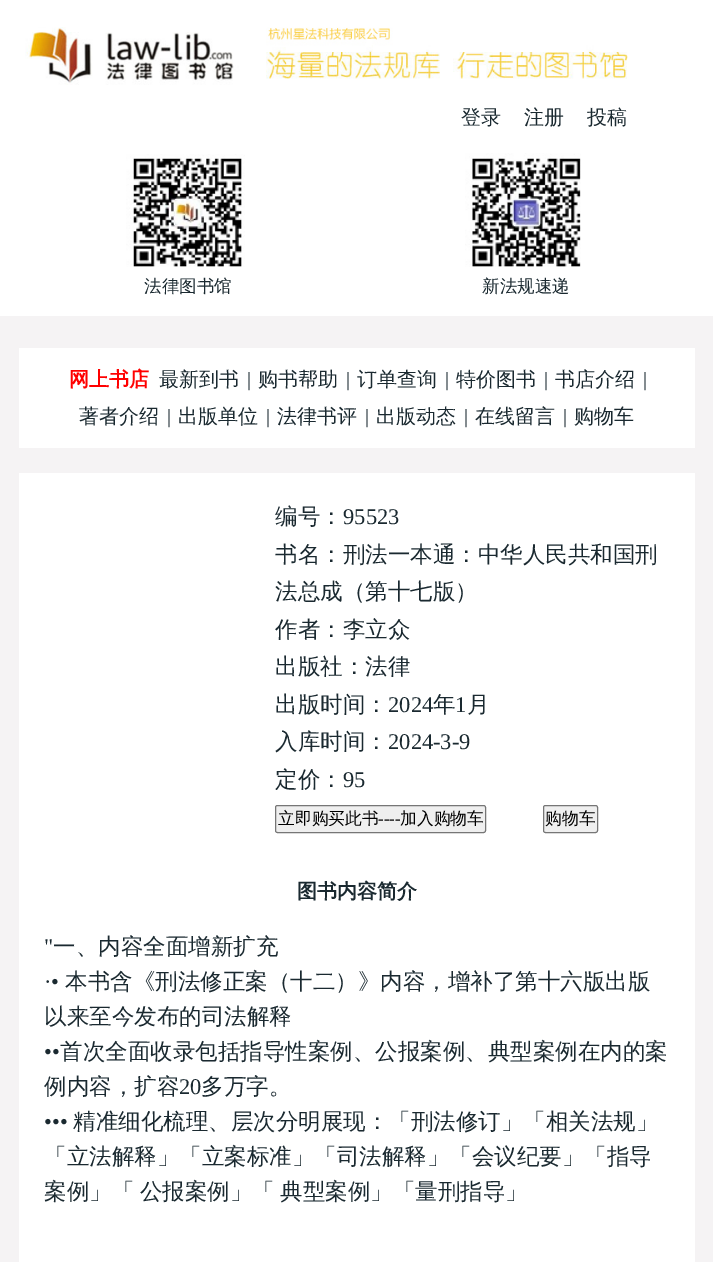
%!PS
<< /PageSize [713 1262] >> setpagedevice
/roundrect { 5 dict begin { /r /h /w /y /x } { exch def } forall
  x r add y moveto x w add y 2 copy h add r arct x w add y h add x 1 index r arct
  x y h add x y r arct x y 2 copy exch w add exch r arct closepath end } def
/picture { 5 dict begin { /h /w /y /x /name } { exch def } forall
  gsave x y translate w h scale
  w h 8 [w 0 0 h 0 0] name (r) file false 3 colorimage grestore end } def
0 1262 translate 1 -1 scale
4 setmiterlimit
0.961 0.953 0.957 setrgbcolor
0 0 713 1262 rectfill
1 setgray
0 0 713 316 rectfill
(img1.rgb) 25 27 603 58 picture
/WenQuanYiZenHei-Medium [20 0 0 -20 0 0] selectfont
0.102 0.161 0.188 setrgbcolor
461 124 moveto (登录) show
524 124 moveto (注册) show
587 124 moveto (投稿) show
(img2.rgb) 126 154 119 113 picture
/WenQuanYiZenHei-Medium [17.5 0 0 -17.5 0 0] selectfont
144 292 moveto (法律图书馆) show
(img3.rgb) 465 153 116 114 picture
482 292 moveto (新法规速递) show
1 setgray
19 348 676 100 rectfill
/WenQuanYiZenHei-Bold [20 0 0 -20 0 0] selectfont
1 0 0 setrgbcolor
69 386 moveto (网上书店) show
/WenQuanYiZenHei-Medium [20 0 0 -20 0 0] selectfont
0.102 0.161 0.188 setrgbcolor
159 386 moveto (最新到书) show
/LiberationSerif-Regular [20 0 0 -20 0 0] selectfont
247 386 moveto (|) show
/WenQuanYiZenHei-Medium [20 0 0 -20 0 0] selectfont
258 386 moveto (购书帮助) show
/LiberationSerif-Regular [20 0 0 -20 0 0] selectfont
346 386 moveto (|) show
/WenQuanYiZenHei-Medium [20 0 0 -20 0 0] selectfont
357 386 moveto (订单查询) show
/LiberationSerif-Regular [20 0 0 -20 0 0] selectfont
445 386 moveto (|) show
/WenQuanYiZenHei-Medium [20 0 0 -20 0 0] selectfont
456 386 moveto (特价图书) show
/LiberationSerif-Regular [20 0 0 -20 0 0] selectfont
544 386 moveto (|) show
/WenQuanYiZenHei-Medium [20 0 0 -20 0 0] selectfont
555 386 moveto (书店介绍) show
/LiberationSerif-Regular [20 0 0 -20 0 0] selectfont
643 386 moveto (|) show
/WenQuanYiZenHei-Medium [20 0 0 -20 0 0] selectfont
79 423 moveto (著者介绍) show
/LiberationSerif-Regular [20 0 0 -20 0 0] selectfont
167 423 moveto (|) show
/WenQuanYiZenHei-Medium [20 0 0 -20 0 0] selectfont
178 423 moveto (出版单位) show
/LiberationSerif-Regular [20 0 0 -20 0 0] selectfont
266 423 moveto (|) show
/WenQuanYiZenHei-Medium [20 0 0 -20 0 0] selectfont
277 423 moveto (法律书评) show
/LiberationSerif-Regular [20 0 0 -20 0 0] selectfont
365 423 moveto (|) show
/WenQuanYiZenHei-Medium [20 0 0 -20 0 0] selectfont
376 423 moveto (出版动态) show
/LiberationSerif-Regular [20 0 0 -20 0 0] selectfont
464 423 moveto (|) show
/WenQuanYiZenHei-Medium [20 0 0 -20 0 0] selectfont
475 423 moveto (在线留言) show
/LiberationSerif-Regular [20 0 0 -20 0 0] selectfont
563 423 moveto (|) show
/WenQuanYiZenHei-Medium [20 0 0 -20 0 0] selectfont
574 423 moveto (购物车) show
1 setgray
19 473 676 789 rectfill
/WenQuanYiZenHei-Medium [22.5 0 0 -22.5 0 0] selectfont
0.102 0.161 0.188 setrgbcolor
275 524 moveto (编号：) show
/LiberationSerif-Regular [22.5 0 0 -22.5 0 0] selectfont
343 524 moveto (95523) show
/WenQuanYiZenHei-Medium [22.5 0 0 -22.5 0 0] selectfont
275 562 moveto (书名：刑法一本通：中华人民共和国刑) show
275 599 moveto (法总成（第十七版）) show
275 637 moveto (作者：李立众) show
275 674 moveto (出版社：法律) show
275 712 moveto (出版时间：) show
/LiberationSerif-Regular [22.5 0 0 -22.5 0 0] selectfont
388 712 moveto (2024) show
/WenQuanYiZenHei-Medium [22.5 0 0 -22.5 0 0] selectfont
433 712 moveto (年) show
/LiberationSerif-Regular [22.5 0 0 -22.5 0 0] selectfont
455 712 moveto (1) show
/WenQuanYiZenHei-Medium [22.5 0 0 -22.5 0 0] selectfont
467 712 moveto (月) show
275 749 moveto (入库时间：) show
/LiberationSerif-Regular [22.5 0 0 -22.5 0 0] selectfont
388 749 moveto (2024-3-9) show
/WenQuanYiZenHei-Medium [22.5 0 0 -22.5 0 0] selectfont
275 787 moveto (定价：) show
/LiberationSerif-Regular [22.5 0 0 -22.5 0 0] selectfont
343 787 moveto (95) show
0.937 setgray
275.5 805.5 210 27 2 roundrect gsave fill grestore
0.463 setgray
stroke
/WenQuanYiZenHei-Medium [16.75 0 0 -16.75 0 0] selectfont
0 setgray
278 824 moveto (立即购买此书) show
/LiberationSerif-Regular [16.75 0 0 -16.75 0 0] selectfont
378 824 moveto (----) show
/WenQuanYiZenHei-Medium [16.75 0 0 -16.75 0 0] selectfont
400 824 moveto (加入购物车) show
0.937 setgray
543.5 805.5 54 27 2 roundrect gsave fill grestore
0.463 setgray
stroke
0 setgray
545 824 moveto (购物车) show
/WenQuanYiZenHei-Bold [20 0 0 -20 0 0] selectfont
0.102 0.161 0.188 setrgbcolor
297 898 moveto (图书内容简介) show
/LiberationSerif-Regular [22.5 0 0 -22.5 0 0] selectfont
44 954 moveto (") show
/WenQuanYiZenHei-Medium [22.5 0 0 -22.5 0 0] selectfont
53 954 moveto (一、内容全面增新扩充) show
/LiberationSerif-Regular [22.5 0 0 -22.5 0 0] selectfont
44 989 moveto (·•) show
/WenQuanYiZenHei-Medium [22.5 0 0 -22.5 0 0] selectfont
65 989 moveto (本书含《刑法修正案（十二）》内容，增补了第十六版出版) show
44 1024 moveto (以来至今发布的司法解释) show
/LiberationSerif-Regular [22.5 0 0 -22.5 0 0] selectfont
44 1059 moveto (••) show
/WenQuanYiZenHei-Medium [22.5 0 0 -22.5 0 0] selectfont
60 1059 moveto (首次全面收录包括指导性案例、公报案例、典型案例在内的案) show
44 1094 moveto (例内容，扩容) show
/LiberationSerif-Regular [22.5 0 0 -22.5 0 0] selectfont
179 1094 moveto (20) show
/WenQuanYiZenHei-Medium [22.5 0 0 -22.5 0 0] selectfont
201 1094 moveto (多万字。) show
/LiberationSerif-Regular [22.5 0 0 -22.5 0 0] selectfont
44 1129 moveto (•••) show
/WenQuanYiZenHei-Medium [22.5 0 0 -22.5 0 0] selectfont
73 1129 moveto (精准细化梳理、层次分明展现：「刑法修订」「相关法规」) show
44 1164 moveto (「立法解释」「立案标准」「司法解释」「会议纪要」「指导) show
44 1199 moveto -1 0 32 (案例」「 公报案例」「 典型案例」「量刑指导」) widthshow
showpage
